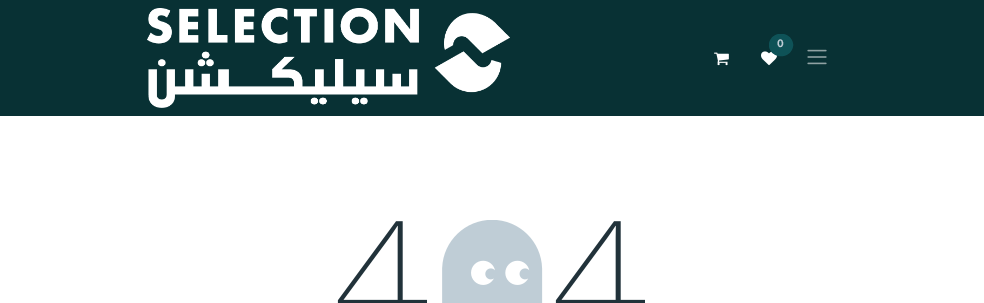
%!PS
<< /PageSize [984 303] >> setpagedevice
/roundrect { 5 dict begin { /r /h /w /y /x } { exch def } forall
  x r add y moveto x w add y 2 copy h add r arct x w add y h add x 1 index r arct
  x y h add x y r arct x y 2 copy exch w add exch r arct closepath end } def
/picture { 5 dict begin { /h /w /y /x /name } { exch def } forall
  gsave x y translate w h scale
  w h 8 [w 0 0 h 0 0] name (r) file false 3 colorimage grestore end } def
0 303 translate 1 -1 scale
4 setmiterlimit
1 setgray
0 0 984 303 rectfill
0.031 0.192 0.204 setrgbcolor
0 0 984 116 rectfill
(img1.rgb) 147 8 363 100 picture
(img2.rgb) 761 51 16 15 picture
0.055 0.322 0.341 setrgbcolor
769.5 34.5 23 21 10.5 roundrect gsave fill grestore
stroke
/Tajawal-Bold [12 0 0 -12 0 0] selectfont
0.749 0.804 0.839 setrgbcolor
777 47 moveto (0) show
(img3.rgb) 714 52 15 14 picture
(img4.rgb) 807 49 20 16 picture
(img5.rgb) 337 220 308 83 picture
showpage
